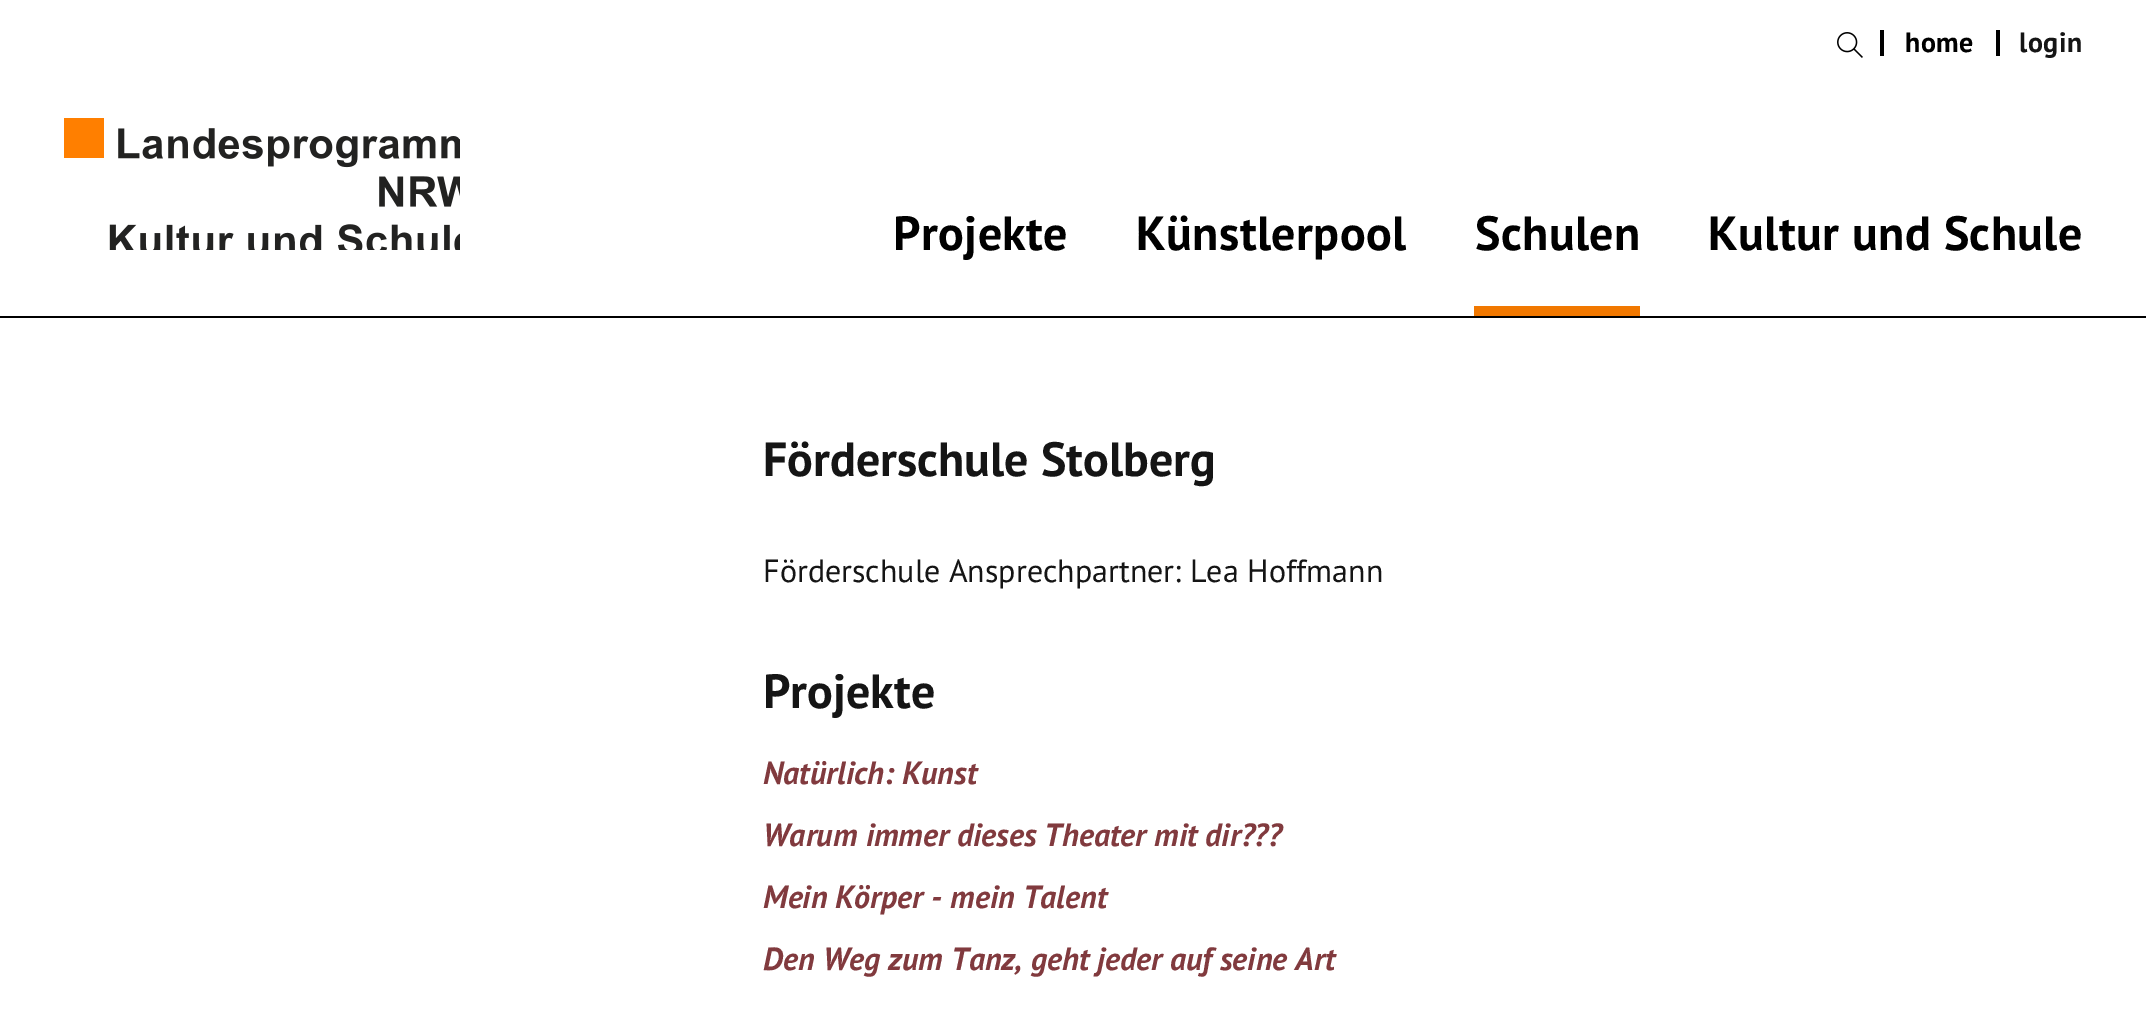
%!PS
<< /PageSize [2146 1021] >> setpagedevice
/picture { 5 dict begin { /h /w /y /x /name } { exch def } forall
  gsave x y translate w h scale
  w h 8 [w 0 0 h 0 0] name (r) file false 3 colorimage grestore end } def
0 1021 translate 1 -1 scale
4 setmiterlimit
1 setgray
0 0 2146 1021 rectfill
0 setgray
0 316 2146 2 rectfill
(img1.rgb) 64 118 396 132 picture
(img2.rgb) 1837 32 26 26 picture
1880 30 4 26 rectfill
/PTSans-Bold [28 0 0 -28 0 0] selectfont
1905 52 moveto 0.5 0 (home) ashow
1996 30 4 26 rectfill
0.082 setgray
2019 52 moveto 0.5 0 (login) ashow
/PTSans-Bold [48 0 0 -48 0 0] selectfont
0 setgray
893 250 moveto 0.4 0 (Projekte) ashow
1136 250 moveto 0.4 0 (Künstlerpool) ashow
0.945 0.471 0 setrgbcolor
1474 306 166 10 rectfill
0 setgray
1475 250 moveto 0.4 0 (Schulen) ashow
1708 250 moveto 0.4 0 (Kultur und Schule) ashow
0.082 setgray
763 476 moveto (Förderschule Stolberg) show
/PTSans-Regular [32 0 0 -32 0 0] selectfont
763 582 moveto (Förderschule Ansprechpartner: Lea Hoffmann) show
/PTSans-Bold [48 0 0 -48 0 0] selectfont
763 708 moveto (Projekte) show
/PTSans-BoldItalic [32 0 0 -32 0 0] selectfont
0.506 0.227 0.243 setrgbcolor
763 784 moveto (Natürlich: Kunst) show
763 846 moveto (Warum immer dieses Theater mit dir???) show
763 908 moveto (Mein Körper - mein Talent) show
763 970 moveto (Den Weg zum Tanz, geht jeder auf seine Art) show
showpage
